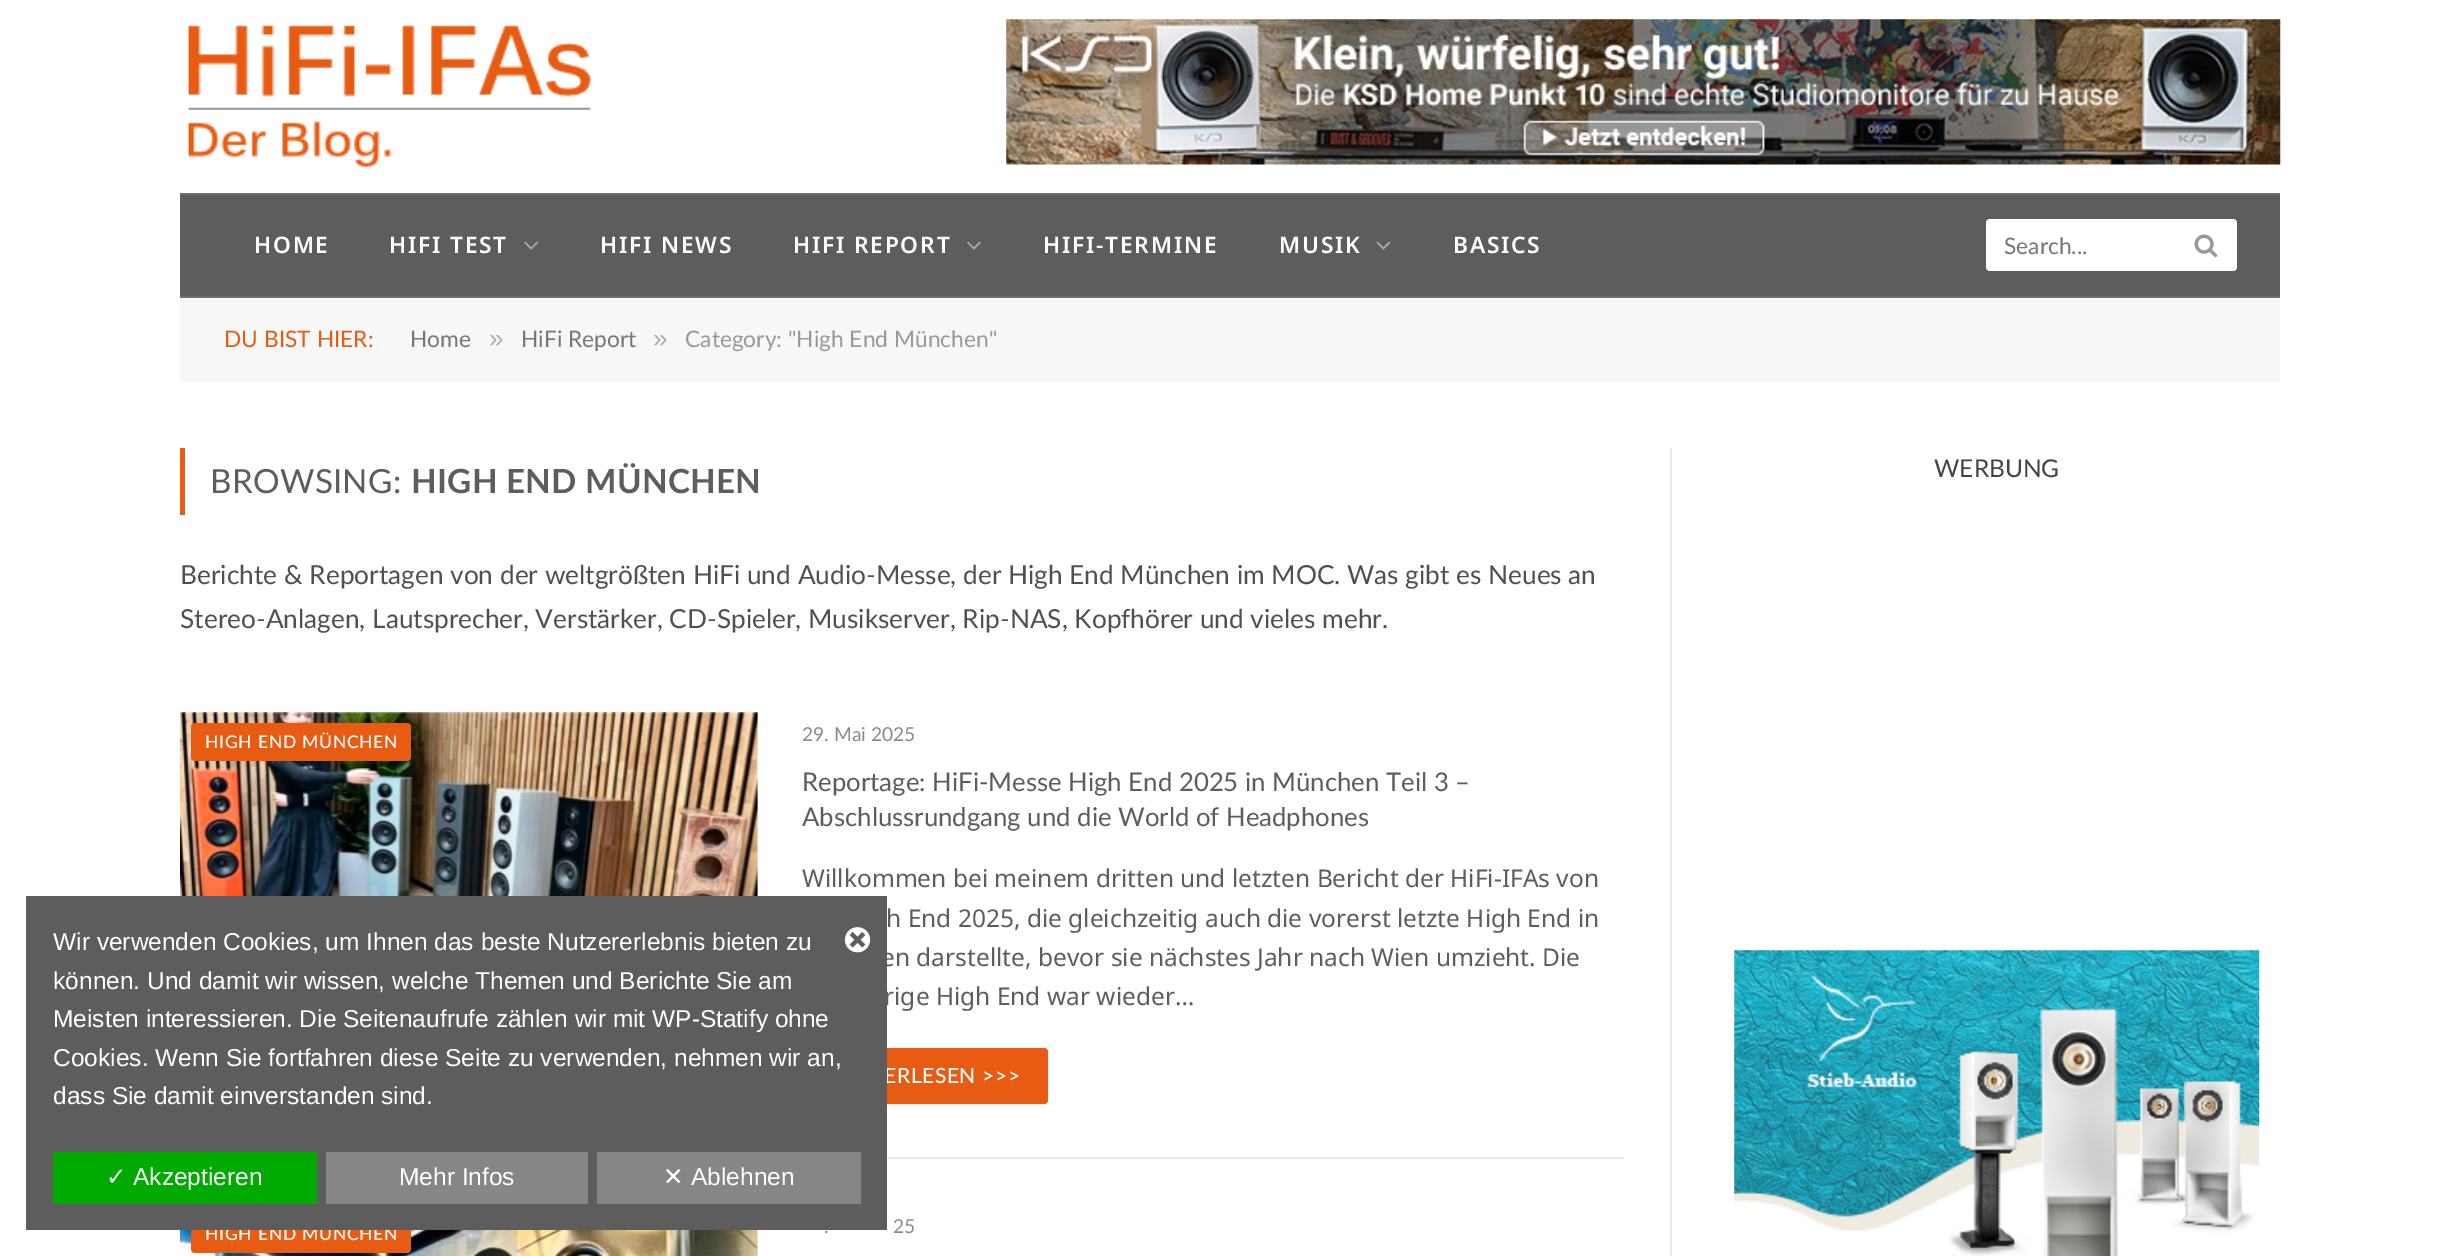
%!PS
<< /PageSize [2459 1256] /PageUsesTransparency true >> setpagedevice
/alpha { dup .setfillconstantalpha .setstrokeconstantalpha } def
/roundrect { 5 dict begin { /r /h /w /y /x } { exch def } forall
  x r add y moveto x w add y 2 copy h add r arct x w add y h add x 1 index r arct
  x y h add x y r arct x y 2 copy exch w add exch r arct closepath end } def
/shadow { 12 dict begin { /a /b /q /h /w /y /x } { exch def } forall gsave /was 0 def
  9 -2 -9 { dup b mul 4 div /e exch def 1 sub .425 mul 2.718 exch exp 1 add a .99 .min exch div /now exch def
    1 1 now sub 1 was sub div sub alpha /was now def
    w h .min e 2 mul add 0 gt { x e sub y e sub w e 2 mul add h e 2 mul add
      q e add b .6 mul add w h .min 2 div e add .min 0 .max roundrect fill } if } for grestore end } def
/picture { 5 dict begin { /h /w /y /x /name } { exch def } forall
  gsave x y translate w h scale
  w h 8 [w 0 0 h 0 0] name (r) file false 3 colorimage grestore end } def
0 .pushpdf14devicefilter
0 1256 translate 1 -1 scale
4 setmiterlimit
1 setgray
0 0 2459 1256 rectfill
(img1.rgb) 188 25 403 142 picture
(img2.rgb) 1006 19 1275 146 picture
0.365 setgray
180 195 2100 101 rectfill
0.427 setgray
180 193 2100 2 rectfill
180 296 2100 2 rectfill
/NotoSans-SemiBold [22.75 0 0 -22.75 0 0] selectfont
1 setgray
254 253 moveto 1.75 0 (HOME) ashow
389 253 moveto 1.75 0 (HIFI TEST) ashow
(img3.rgb) 524 241 14 9 picture
600 253 moveto 1.75 0 (HIFI NEWS) ashow
793 253 moveto 1.75 0 (HIFI REPORT) ashow
(img4.rgb) 967 241 14 9 picture
1043 253 moveto 1.75 0 (HIFI-TERMINE) ashow
1279 253 moveto 1.75 0 (MUSIK) ashow
(img5.rgb) 1376 241 15 9 picture
1453 253 moveto 1.75 0 (BASICS) ashow
1986 219 251 52 4 roundrect fill
/Lato-Regular [22.75 0 0 -22.75 0 0] selectfont
0.467 setgray
2004 254 moveto (Search...) show
(img6.rgb) 2194 234 24 24 picture
0.969 setgray
180 298 2100 84 rectfill
0.906 0.357 0.071 setrgbcolor
224 347 moveto (DU BIST HIER:) show
0.467 setgray
410 347 moveto (Home) show
/LiberationSans-Regular [26 0 0 -26 0 0] selectfont
0.675 setgray
489 347 moveto (») show
/Lato-Regular [22.75 0 0 -22.75 0 0] selectfont
0.467 setgray
521 347 moveto (HiFi Report) show
/LiberationSans-Regular [26 0 0 -26 0 0] selectfont
0.675 setgray
653 347 moveto (») show
/Lato-Regular [22.75 0 0 -22.75 0 0] selectfont
0.6 setgray
685 347 moveto (Category: "High End München") show
0.906 0.357 0.071 setrgbcolor
180 448 5 67 rectfill
/Lato-Regular [33.25 0 0 -33.25 0 0] selectfont
0.365 setgray
210 493 moveto 0.3 0 (BROWSING:) ashow
/Lato-Bold [33.25 0 0 -33.25 0 0] selectfont
411 493 moveto 0.3 0 (HIGH END MÜNCHEN) ashow
/Lato-Regular [26.25 0 0 -26.25 0 0] selectfont
0.314 setgray
180 584 moveto (Berichte & Reportagen von der weltgrößten HiFi und Audio-Messe, der High End München im MOC. Was gibt es Neues an) show
180 628 moveto (Stereo-Anlagen, Lautsprecher, Verstärker, CD-Spieler, Musikserver, Rip-NAS, Kopfhörer und vieles mehr.) show
(img7.rgb) 180 712 578 184 picture
0.906 0.357 0.071 setrgbcolor
191 723 220 38 4 roundrect fill
/Lato-Medium [17.5 0 0 -17.5 0 0] selectfont
1 setgray
205 748 moveto 0.75 0 (HIGH END MÜNCHEN) ashow
/Lato-Regular [19.25 0 0 -19.25 0 0] selectfont
0.541 setgray
802 741 moveto (29. Mai 2025) show
/Lato-Regular [25.75 0 0 -25.75 0 0] selectfont
0.365 setgray
802 791 moveto (Reportage: HiFi-Messe High End 2025 in München Teil 3 –) show
802 826 moveto (Abschlussrundgang und die World of Headphones) show
/NotoSans-Regular [24.5 0 0 -24.5 0 0] selectfont
802 887 moveto (Willkommen bei meinem dritten und letzten Bericht der HiFi-IFAs von) show
886 927 moveto (h End 2025, die gleichzeitig auch die vorerst letzte High End in) show
881 966 moveto (en darstellte, bevor sie nächstes Jahr nach Wien umzieht. Die) show
884 1005 moveto (rige High End war wieder…) show
0 setgray
809 1059 232 42 0 6 0.16 shadow
0.906 0.357 0.071 setrgbcolor
802 1048 246 56 4 roundrect fill
/Lato-Medium [21 0 0 -21 0 0] selectfont
1 setgray
884 1083 moveto 0.6 0 (ERLESEN >>>) ashow
0.91 setgray
887 1157 737 2 rectfill
(img8.rgb) 180 1230 578 26 picture
0.906 0.357 0.071 setrgbcolor
191 1215 220 38 4 roundrect fill
/Lato-Medium [17.5 0 0 -17.5 0 0] selectfont
1 setgray
205 1240 moveto 0.75 0 (HIGH END MÜNCHEN) ashow
/Lato-Regular [19.25 0 0 -19.25 0 0] selectfont
0.541 setgray
824 1233 moveto (.) show
893 1233 moveto (25) show
0.91 setgray
1670 448 2 808 rectfill
/Lato-Regular [24.5 0 0 -24.5 0 0] selectfont
0.267 setgray
1934 477 moveto (WERBUNG) show
(img9.rgb) 1734 950 526 306 picture
0.365 setgray
26 896 861 334 rectfill
/LiberationSans-Regular [24.5 0 0 -24.5 0 0] selectfont
1 setgray
53 950 moveto (Wir verwenden Cookies, um Ihnen das beste Nutzererlebnis bieten zu) show
53 989 moveto (können. Und damit wir wissen, welche Themen und Berichte Sie am) show
53 1027 moveto (Meisten interessieren. Die Seitenaufrufe zählen wir mit WP-Statify ohne) show
53 1066 moveto (Cookies. Wenn Sie fortfahren diese Seite zu verwenden, nehmen wir an,) show
53 1104 moveto (dass Sie damit einverstanden sind.) show
(img10.rgb) 844 927 27 26 picture
0 0.667 0 setrgbcolor
53 1152 264 52 rectfill
/DejaVuSans-Regular [24.5 0 0 -24.5 0 0] selectfont
1 setgray
106 1185 moveto (✓) show
/LiberationSans-Regular [24.5 0 0 -24.5 0 0] selectfont
133 1185 moveto (Akzeptieren) show
0.525 setgray
326 1152 262 52 rectfill
1 setgray
399 1185 moveto (Mehr Infos) show
0.525 setgray
597 1152 264 52 rectfill
/DejaVuSans-Regular [24.5 0 0 -24.5 0 0] selectfont
1 setgray
663 1185 moveto (✕) show
/LiberationSans-Regular [24.5 0 0 -24.5 0 0] selectfont
691 1185 moveto (Ablehnen) show
.poppdf14devicefilter showpage
